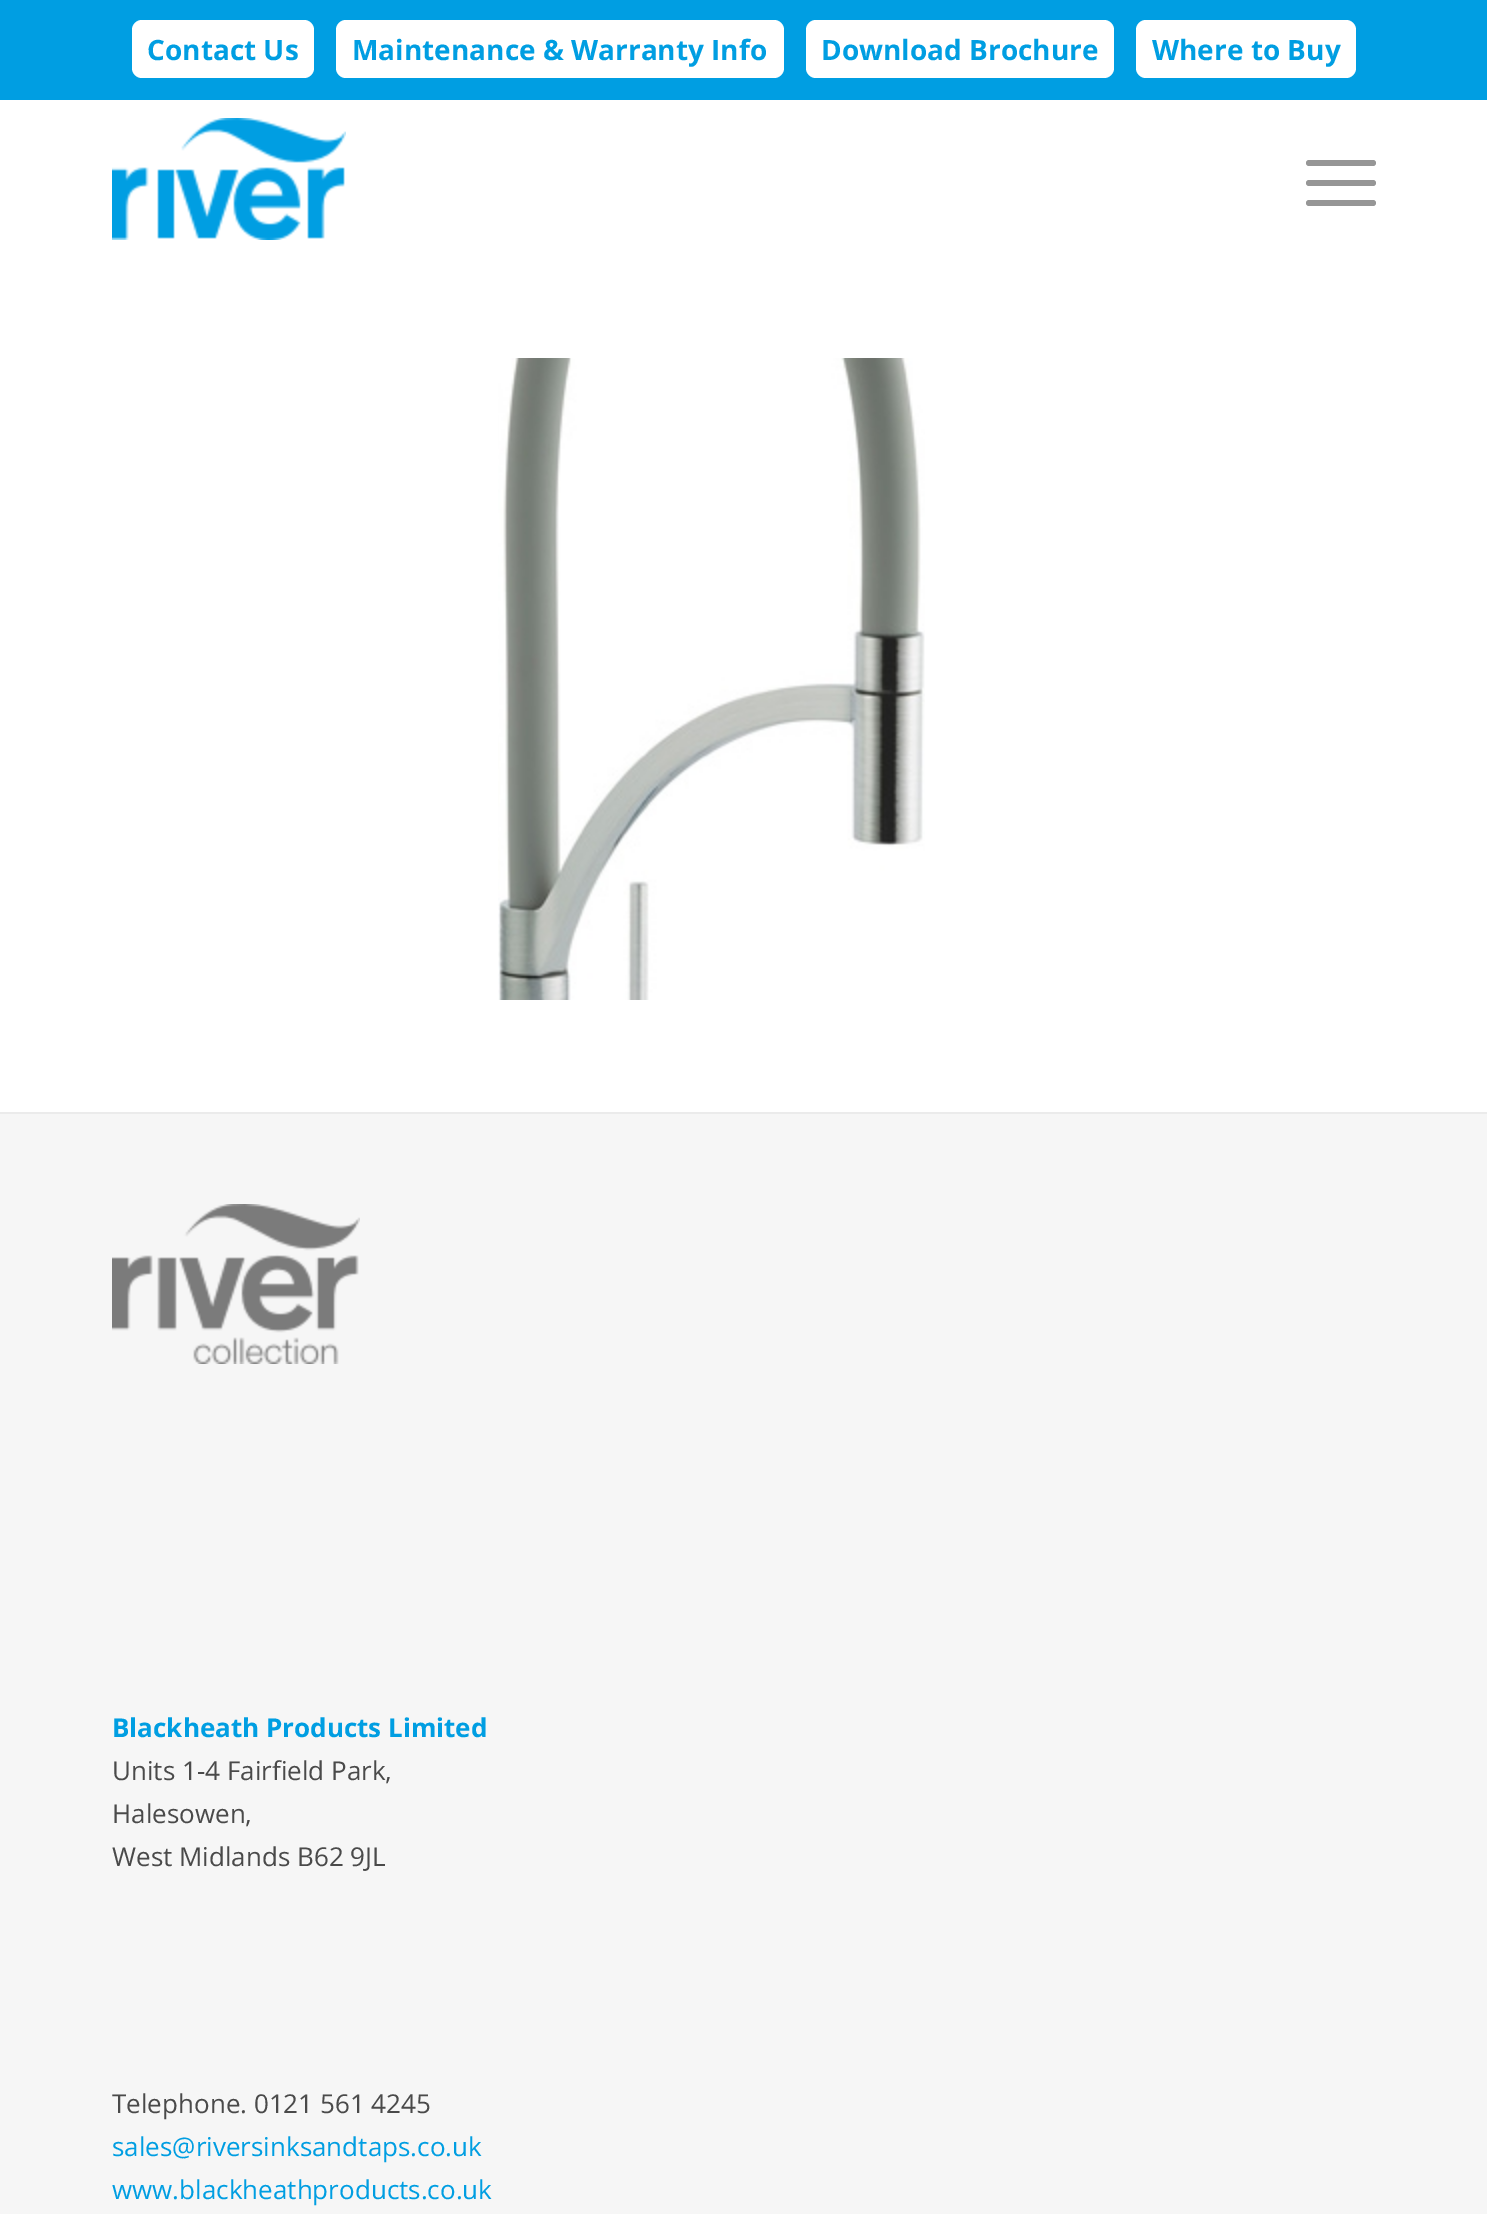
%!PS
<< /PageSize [1487 2214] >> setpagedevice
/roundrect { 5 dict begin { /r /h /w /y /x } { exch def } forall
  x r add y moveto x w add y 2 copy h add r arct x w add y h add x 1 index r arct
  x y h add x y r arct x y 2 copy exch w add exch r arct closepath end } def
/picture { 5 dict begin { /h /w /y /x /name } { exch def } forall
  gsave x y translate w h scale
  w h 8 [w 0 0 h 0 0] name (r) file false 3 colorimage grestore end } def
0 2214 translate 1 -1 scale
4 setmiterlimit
1 setgray
0 0 1487 2214 rectfill
0 0.62 0.886 setrgbcolor
0 0 1487 100 rectfill
1 setgray
132 20 182 58 10 roundrect fill
/OpenSans-Bold [28 0 0 -28 0 0] selectfont
0 0.62 0.886 setrgbcolor
147 60 moveto (Contact Us) show
1 setgray
336 20 448 58 10 roundrect fill
0 0.62 0.886 setrgbcolor
352 60 moveto (Maintenance & Warranty Info) show
1 setgray
806 20 308 58 10 roundrect fill
0 0.62 0.886 setrgbcolor
821 60 moveto (Download Brochure) show
1 setgray
1136 20 220 58 10 roundrect fill
0 0.62 0.886 setrgbcolor
1152 60 moveto (Where to Buy) show
(img1.rgb) 112 118 234 122 picture
0.588 setgray
1306 180 70 6 3 roundrect fill
1306 160 70 6 3 roundrect fill
1306 200 70 6 3 roundrect fill
(img2.rgb) 498 358 427 642 picture
0.965 setgray
0 1114 1487 1100 rectfill
0.922 setgray
0 1112 1487 2 rectfill
(img3.rgb) 112 1204 248 160 picture
/OpenSans-Bold [26 0 0 -26 0 0] selectfont
0 0.62 0.886 setrgbcolor
112 1737 moveto (Blackheath Products Limited) show
/OpenSans-Regular [26 0 0 -26 0 0] selectfont
0.29 setgray
112 1780 moveto (Units 1-4 Fairfield Park,) show
112 1823 moveto (Halesowen,) show
112 1866 moveto (West Midlands B62 9JL) show
112 2113 moveto (Telephone. 0121 561 4245) show
0 0.62 0.886 setrgbcolor
112 2156 moveto (sales@riversinksandtaps.co.uk) show
112 2199 moveto (www.blackheathproducts.co.uk) show
showpage
